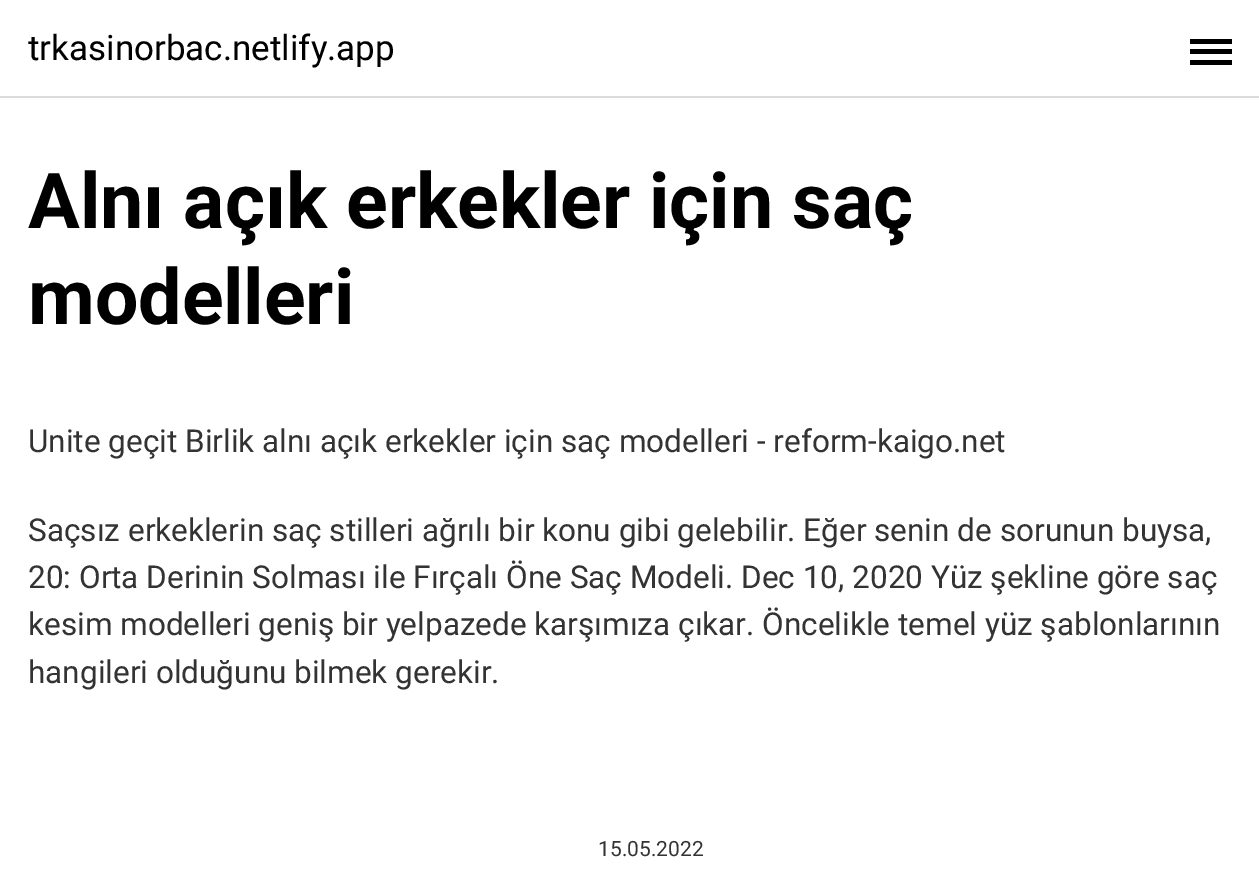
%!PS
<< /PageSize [1259 896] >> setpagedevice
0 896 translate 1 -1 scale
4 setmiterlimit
1 setgray
0 0 1259 896 rectfill
0.859 setgray
0 96 1259 2 rectfill
/Roboto-Regular [35 0 0 -35 0 0] selectfont
0 setgray
28 60 moveto (trkasinorbac.netlify.app) show
1190 49 42 5 rectfill
1190 39 42 5 rectfill
1190 60 42 5 rectfill
/Roboto-Bold [77 0 0 -77 0 0] selectfont
28 228 moveto (Alnı açık erkekler için saç) show
28 324 moveto (modelleri) show
/Roboto-Regular [31.5 0 0 -31.5 0 0] selectfont
0.2 setgray
28 452 moveto (Unite geçit Birlik alnı açık erkekler için saç modelleri - reform-kaigo.net) show
28 541 moveto (Saçsız erkeklerin saç stilleri ağrılı bir konu gibi gelebilir. Eğer senin de sorunun buysa,) show
28 588 moveto (20: Orta Derinin Solması ile Fırçalı Öne Saç Modeli. Dec 10, 2020 Yüz şekline göre saç) show
28 635 moveto (kesim modelleri geniş bir yelpazede karşımıza çıkar. Öncelikle temel yüz şablonlarının) show
28 683 moveto (hangileri olduğunu bilmek gerekir.) show
/Roboto-Regular [21 0 0 -21 0 0] selectfont
598 856 moveto (15.05.2022) show
showpage
